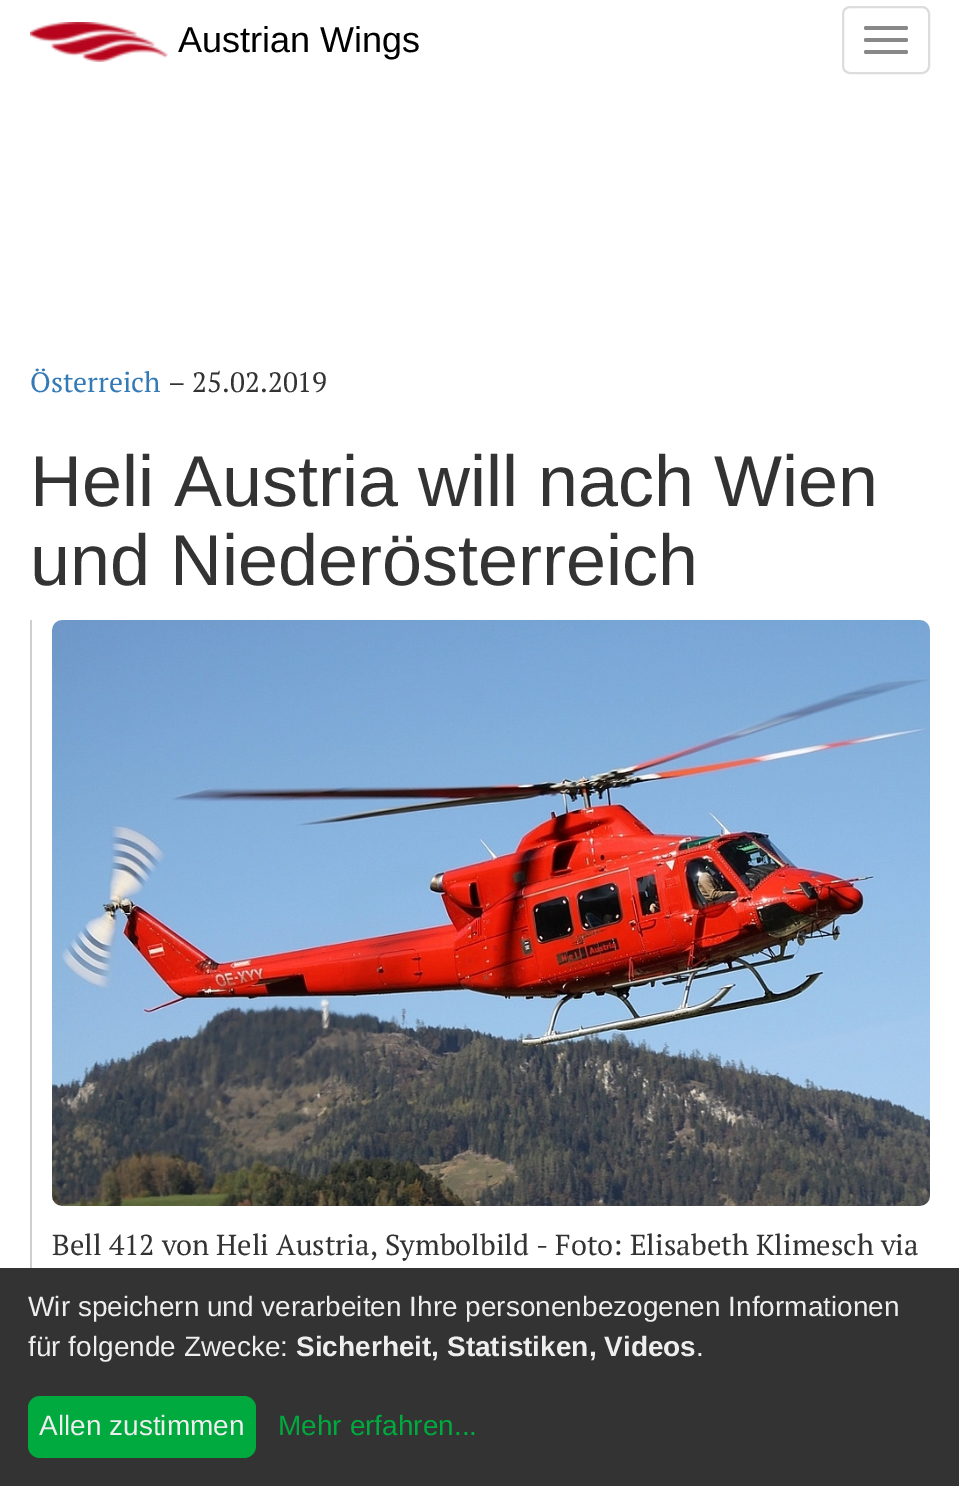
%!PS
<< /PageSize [959 1486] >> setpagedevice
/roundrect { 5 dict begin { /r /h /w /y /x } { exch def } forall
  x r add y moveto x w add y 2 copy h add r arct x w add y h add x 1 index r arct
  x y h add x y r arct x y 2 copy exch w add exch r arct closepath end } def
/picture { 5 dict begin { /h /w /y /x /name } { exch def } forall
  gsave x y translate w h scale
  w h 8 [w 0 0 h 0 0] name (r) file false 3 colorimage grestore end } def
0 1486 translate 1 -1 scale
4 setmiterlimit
1 setgray
0 0 959 1486 rectfill
(img1.rgb) 30 22 138 40 picture
/LiberationSans-Regular [36 0 0 -36 0 0] selectfont
0 setgray
178 52 moveto (Austrian Wings) show
0.867 setgray
2 setlinewidth
843 7 86 66 7 roundrect stroke
0.533 setgray
864 26 44 4 2 roundrect fill
864 38 44 4 2 roundrect fill
864 50 44 4 2 roundrect fill
/PTSerif-Regular [28 0 0 -28 0 0] selectfont
0.2 0.478 0.718 setrgbcolor
30 392 moveto (Österreich) show
0.2 setgray
168 392 moveto (– 25.02.2019) show
/LiberationSans-Regular [72 0 0 -72 0 0] selectfont
30 506 moveto (Heli Austria will nach Wien) show
30 585 moveto (und Niederösterreich) show
0.812 setgray
30 620 2 648 rectfill
(img2.rgb) 52 620 878 586 picture
/PTSerif-Regular [28.8 0 0 -28.8 0 0] selectfont
0.2 setgray
52 1255 moveto (Bell 412 von Heli Austria, Symbolbild - Foto: Elisabeth Klimesch via) show
0 1268 959 218 rectfill
/LiberationSans-Regular [28 0 0 -28 0 0] selectfont
0.933 setgray
28 1316 moveto (Wir speichern und verarbeiten Ihre personenbezogenen Informationen) show
28 1356 moveto (für folgende Zwecke:) show
/LiberationSans-Bold [28 0 0 -28 0 0] selectfont
296 1356 moveto (Sicherheit, Statistiken, Videos) show
/LiberationSans-Regular [28 0 0 -28 0 0] selectfont
696 1356 moveto (.) show
0 0.667 0.243 setrgbcolor
28 1396 228 62 12 roundrect fill
0.933 setgray
39 1435 moveto (Allen zustimmen) show
0 0.667 0.243 setrgbcolor
278 1435 moveto (Mehr erfahren...) show
showpage
